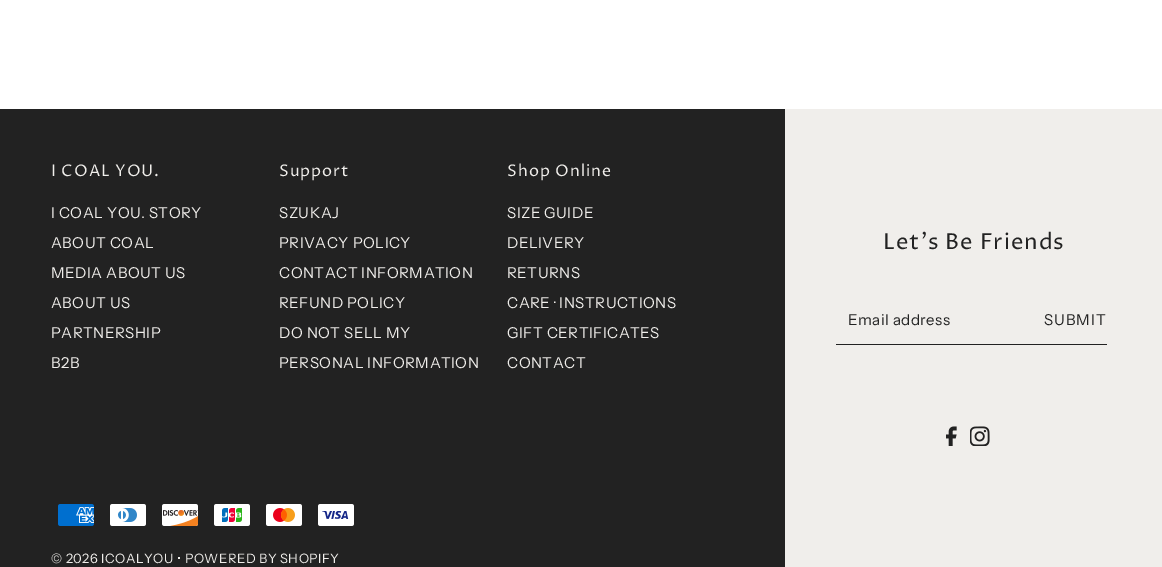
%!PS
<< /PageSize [1162 567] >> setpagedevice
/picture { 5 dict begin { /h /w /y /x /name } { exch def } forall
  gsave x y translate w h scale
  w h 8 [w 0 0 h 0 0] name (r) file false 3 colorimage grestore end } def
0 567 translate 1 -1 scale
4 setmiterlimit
1 setgray
0 0 1162 567 rectfill
0.133 setgray
0 109 785 458 rectfill
/ProzaLibre-Regular [16 0 0 -16 0 0] selectfont
0.941 0.933 0.922 setrgbcolor
51 176 moveto 1 0 (I COAL YOU.) ashow
/InstrumentSans-Regular [15 0 0 -15 0 0] selectfont
51 218 moveto 0.5 0 (I COAL YOU. STORY) ashow
51 248 moveto 0.5 0 (ABOUT COAL) ashow
51 278 moveto 0.5 0 (MEDIA ABOUT US) ashow
51 308 moveto 0.5 0 (ABOUT US) ashow
51 338 moveto 0.5 0 (PARTNERSHIP) ashow
51 368 moveto 0.5 0 (B2B) ashow
/ProzaLibre-Regular [16 0 0 -16 0 0] selectfont
279 176 moveto 1 0 (Support) ashow
/InstrumentSans-Regular [15 0 0 -15 0 0] selectfont
279 218 moveto 0.5 0 (SZUKAJ) ashow
279 248 moveto 0.5 0 (PRIVACY POLICY) ashow
279 278 moveto 0.5 0 (CONTACT INFORMATION) ashow
279 308 moveto 0.5 0 (REFUND POLICY) ashow
279 338 moveto 0.5 0 (DO NOT SELL MY) ashow
279 368 moveto 0.5 0 (PERSONAL INFORMATION) ashow
/ProzaLibre-Regular [16 0 0 -16 0 0] selectfont
507 176 moveto 1 0 (Shop Online) ashow
/InstrumentSans-Regular [15 0 0 -15 0 0] selectfont
507 218 moveto 0.5 0 (SIZE GUIDE) ashow
507 248 moveto 0.5 0 (DELIVERY) ashow
507 278 moveto 0.5 0 (RETURNS) ashow
507 308 moveto 0.5 0 (CARE · INSTRUCTIONS) ashow
507 338 moveto 0.5 0 (GIFT CERTIFICATES) ashow
507 368 moveto 0.5 0 (CONTACT) ashow
(img1.rgb) 58 504 36 22 picture
(img2.rgb) 110 504 36 22 picture
(img3.rgb) 162 504 36 22 picture
(img4.rgb) 214 504 36 22 picture
(img5.rgb) 266 504 36 22 picture
(img6.rgb) 318 504 36 22 picture
/InstrumentSans-Regular [13 0 0 -13 0 0] selectfont
51 563 moveto 0.5 0 (© 2026 ICOALYOU • POWERED BY SHOPIFY) ashow
785 109 377 458 rectfill
/ProzaLibre-Regular [22 0 0 -22 0 0] selectfont
0.133 setgray
883 249 moveto 1 0 (Let's Be Friends) ashow
836 344 271 1 rectfill
/InstrumentSans-Regular [15 0 0 -15 0 0] selectfont
848 325 moveto 0.5 0 (Email address) ashow
1044 325 moveto 1 0 (SUBMIT) ashow
(img7.rgb) 946 426 11 20 picture
(img8.rgb) 970 426 20 20 picture
showpage
